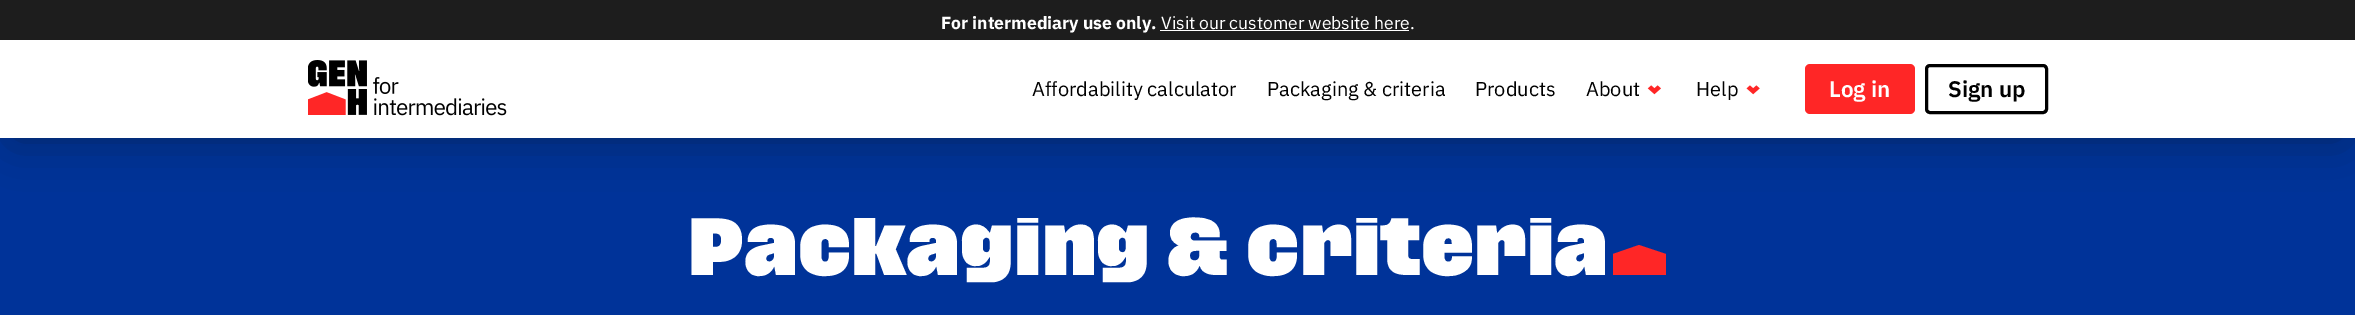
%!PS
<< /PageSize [2355 315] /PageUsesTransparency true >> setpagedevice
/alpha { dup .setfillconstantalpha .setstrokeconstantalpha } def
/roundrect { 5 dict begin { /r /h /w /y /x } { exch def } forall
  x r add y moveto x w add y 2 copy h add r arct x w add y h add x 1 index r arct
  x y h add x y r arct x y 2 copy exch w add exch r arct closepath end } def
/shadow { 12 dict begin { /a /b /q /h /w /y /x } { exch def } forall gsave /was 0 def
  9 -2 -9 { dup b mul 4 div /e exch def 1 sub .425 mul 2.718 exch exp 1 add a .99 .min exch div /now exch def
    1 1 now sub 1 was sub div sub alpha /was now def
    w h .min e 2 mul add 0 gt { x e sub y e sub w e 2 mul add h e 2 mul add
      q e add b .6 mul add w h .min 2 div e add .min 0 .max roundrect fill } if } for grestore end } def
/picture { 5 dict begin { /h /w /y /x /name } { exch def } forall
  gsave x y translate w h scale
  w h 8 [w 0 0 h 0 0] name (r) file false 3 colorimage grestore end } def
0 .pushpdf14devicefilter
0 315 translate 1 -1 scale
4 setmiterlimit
0 0.2 0.6 setrgbcolor
0 0 2355 315 rectfill
0.055 0.071 0.086 setrgbcolor
19 31 2317 100 0 12.5 0.2 shadow
13 25 2330 113 0 24 0.35 shadow
1 setgray
0 40 2355 98 rectfill
0.114 setgray
0 0 2355 40 rectfill
/IBMPlexSans-Bold [17.5 0 0 -17.5 0 0] selectfont
1 setgray
941 29 moveto (For intermediary use only.) show
/IBMPlexSans-Regular [17.5 0 0 -17.5 0 0] selectfont
1161 29 moveto (Visit our customer website here.) show
1160 30 249 1 rectfill
(img1.rgb) 308 60 199 56 picture
/IBMPlexSans-Regular [20 0 0 -20 0 0] selectfont
0 setgray
1032 96 moveto (Affordability calculator) show
1267 96 moveto (Packaging & criteria) show
1475 96 moveto (Products) show
1586 96 moveto (About) show
(img2.rgb) 1647 85 14 10 picture
1696 96 moveto (Help) show
(img3.rgb) 1746 85 14 10 picture
1 0.149 0.149 setrgbcolor
1805 64 110 50 5 roundrect fill
/IBMPlexSans-SemiBold [22.5 0 0 -22.5 0 0] selectfont
1 setgray
1829 97 moveto (Log in) show
0 setgray
3 setlinewidth
1926.5 65.5 120 47 3.5 roundrect stroke
1948 97 moveto (Sign up) show
/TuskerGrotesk-Bold [60 0 0 -60 0 0] selectfont
1 setgray
688 275 moveto (Packaging & criteria) show
1 0.149 0.149 setrgbcolor
newpath 1613 254 moveto 1639 245 lineto 1666 254 lineto 1666 275 lineto 1613 275 lineto closepath fill
.poppdf14devicefilter showpage
